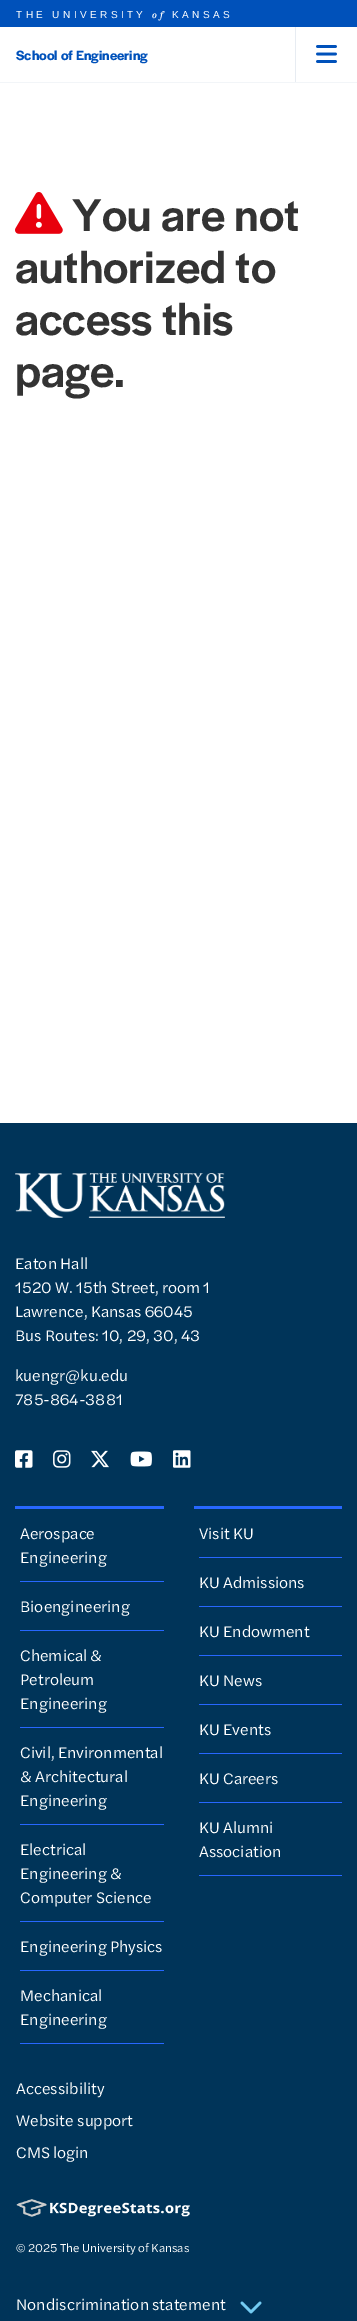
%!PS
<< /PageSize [357 2321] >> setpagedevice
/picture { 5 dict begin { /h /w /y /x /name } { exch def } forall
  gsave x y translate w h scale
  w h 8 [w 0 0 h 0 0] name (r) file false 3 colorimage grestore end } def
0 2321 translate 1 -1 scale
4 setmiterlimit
1 setgray
0 0 357 2321 rectfill
0 0.318 0.729 setrgbcolor
0 0 357 27 rectfill
/LiberationSans-Regular [10 0 0 -10 0 0] selectfont
1 setgray
16 18 moveto 3.4 0 (THE UNIVERSITY) ashow
/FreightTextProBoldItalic-BoldItalic [10 0 0 -10 0 0] selectfont
152 18 moveto 3.4 0 (of) ashow
/LiberationSans-Regular [10 0 0 -10 0 0] selectfont
172 18 moveto 3.4 0 (KANSAS) ashow
0.949 0.961 0.973 setrgbcolor
0 82 357 1 rectfill
0.906 0.925 0.949 setrgbcolor
295 27 1 55 rectfill
/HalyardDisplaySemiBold-SemiBold [14 0 0 -14 0 0] selectfont
0 0.318 0.729 setrgbcolor
16 60 moveto (School of Engineering) show
(img1.rgb) 316 45 21 18 picture
(img2.rgb) 15 192 48 42 picture
/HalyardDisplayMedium-Medium [47.75 0 0 -47.75 0 0] selectfont
0.2 setgray
72 231 moveto (You are not) show
15 283 moveto (authorized to) show
15 335 moveto (access this) show
15 387 moveto (page.) show
0 0.204 0.349 setrgbcolor
0 1123 357 1198 rectfill
(img3.rgb) 15 1173 210 45 picture
/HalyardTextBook-Regular [16 0 0 -16 0 0] selectfont
1 setgray
15 1269 moveto (Eaton Hall) show
15 1293 moveto (1520 W. 15th Street, room 1) show
15 1317 moveto (Lawrence, Kansas 66045) show
15 1341 moveto (Bus Routes: 10, 29, 30, 43) show
15 1381 moveto (kuengr@ku.edu) show
15 1405 moveto (785-864-3881) show
(img4.rgb) 15 1450 18 18 picture
(img5.rgb) 53 1450 18 18 picture
(img6.rgb) 91 1450 18 18 picture
(img7.rgb) 130 1451 22 16 picture
(img8.rgb) 173 1450 18 18 picture
0.153 0.404 1 setrgbcolor
15 1506 149 3 rectfill
20 1581 144 1 rectfill
1 setgray
20 1539 moveto (Aerospace) show
20 1563 moveto (Engineering) show
0.153 0.404 1 setrgbcolor
20 1630 144 1 rectfill
1 setgray
20 1612 moveto (Bioengineering) show
0.153 0.404 1 setrgbcolor
20 1727 144 1 rectfill
1 setgray
20 1661 moveto (Chemical &) show
20 1685 moveto (Petroleum) show
20 1709 moveto (Engineering) show
0.153 0.404 1 setrgbcolor
20 1824 144 1 rectfill
1 setgray
20 1758 moveto (Civil, Environmental) show
20 1782 moveto (& Architectural) show
20 1806 moveto (Engineering) show
0.153 0.404 1 setrgbcolor
20 1921 144 1 rectfill
1 setgray
20 1855 moveto (Electrical) show
20 1879 moveto (Engineering &) show
20 1903 moveto (Computer Science) show
0.153 0.404 1 setrgbcolor
20 1970 144 1 rectfill
1 setgray
20 1952 moveto (Engineering Physics) show
0.153 0.404 1 setrgbcolor
20 2043 144 1 rectfill
1 setgray
20 2001 moveto (Mechanical) show
20 2025 moveto (Engineering) show
0.153 0.404 1 setrgbcolor
194 1506 148 3 rectfill
199 1557 143 1 rectfill
1 setgray
199 1539 moveto (Visit KU) show
0.153 0.404 1 setrgbcolor
199 1606 143 1 rectfill
1 setgray
199 1588 moveto (KU Admissions) show
0.153 0.404 1 setrgbcolor
199 1655 143 1 rectfill
1 setgray
199 1637 moveto (KU Endowment) show
0.153 0.404 1 setrgbcolor
199 1704 143 1 rectfill
1 setgray
199 1686 moveto (KU News) show
0.153 0.404 1 setrgbcolor
199 1753 143 1 rectfill
1 setgray
199 1735 moveto (KU Events) show
0.153 0.404 1 setrgbcolor
199 1802 143 1 rectfill
1 setgray
199 1784 moveto (KU Careers) show
0.153 0.404 1 setrgbcolor
199 1875 143 1 rectfill
1 setgray
199 1833 moveto (KU Alumni) show
199 1857 moveto (Association) show
16 2094 moveto (Accessibility) show
16 2126 moveto (Website support) show
16 2158 moveto (CMS login) show
(img9.rgb) 16 2199 174 18 picture
/HalyardTextBook-Regular [12 0 0 -12 0 0] selectfont
16 2252 moveto (© 2025 The University of Kansas) show
/HalyardTextBook-Regular [16 0 0 -16 0 0] selectfont
16 2310 moveto (Nondiscrimination statement) show
(img10.rgb) 240 2301 22 13 picture
showpage
